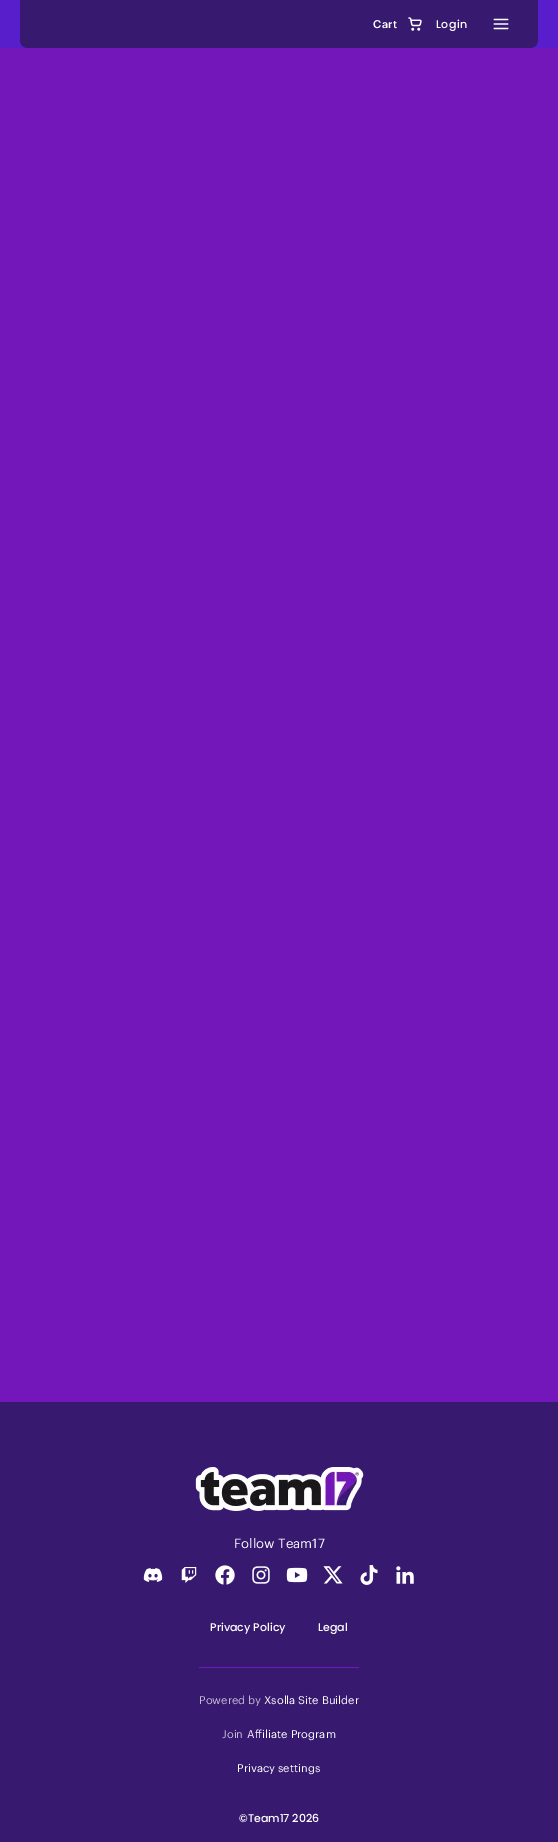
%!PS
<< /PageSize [558 1842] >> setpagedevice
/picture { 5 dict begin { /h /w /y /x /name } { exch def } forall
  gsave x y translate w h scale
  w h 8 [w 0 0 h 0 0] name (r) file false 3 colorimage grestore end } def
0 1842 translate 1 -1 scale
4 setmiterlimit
0.451 0.09 0.729 setrgbcolor
0 0 558 1842 rectfill
0.345 0.118 0.8 setrgbcolor
0 0 558 48 rectfill
0.22 0.098 0.439 setrgbcolor
newpath 20 0 moveto 538 0 lineto 538 40 lineto 538 44.5 534.5 48 530 48 curveto 28 48 lineto 23.5 48 20 44.5 20 40 curveto closepath fill
/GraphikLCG-Medium [11 0 0 -11 0 0] selectfont
1 setgray
373 28 moveto 0.5 0 (Cart) ashow
(img1.rgb) 408 17 14 14 picture
/Poppins-Medium [11 0 0 -11 0 0] selectfont
436 28 moveto 0.5 0 (Login) ashow
(img2.rgb) 493 18 16 12 picture
0.22 0.098 0.439 setrgbcolor
0 1402 558 440 rectfill
(img3.rgb) 195 1467 169 44 picture
/GraphikLCG-Regular [13 0 0 -13 0 0] selectfont
1 setgray
234 1548 moveto (Follow Team17) show
(img4.rgb) 143 1568 20 14 picture
(img5.rgb) 181 1567 16 16 picture
(img6.rgb) 215 1565 20 20 picture
(img7.rgb) 252 1566 18 18 picture
(img8.rgb) 286 1567 22 16 picture
(img9.rgb) 323 1566 20 18 picture
(img10.rgb) 360 1565 18 20 picture
(img11.rgb) 396 1566 18 18 picture
/Poppins-Medium [11 0 0 -11 0 0] selectfont
210 1631 moveto (Privacy Policy) show
318 1631 moveto (Legal) show
0.451 0.09 0.729 setrgbcolor
199 1667 160 1 rectfill
/GraphikLCG-Regular [11 0 0 -11 0 0] selectfont
0.765 0.729 0.831 setrgbcolor
199 1704 moveto (Powered by) show
1 setgray
264 1704 moveto (Xsolla Site Builder) show
0.765 0.729 0.831 setrgbcolor
222 1738 moveto (Join) show
1 setgray
247 1738 moveto (Affiliate Program) show
237 1772 moveto (Privacy settings) show
/Poppins-Medium [11 0 0 -11 0 0] selectfont
239 1822 moveto (©Team17 2026) show
showpage
